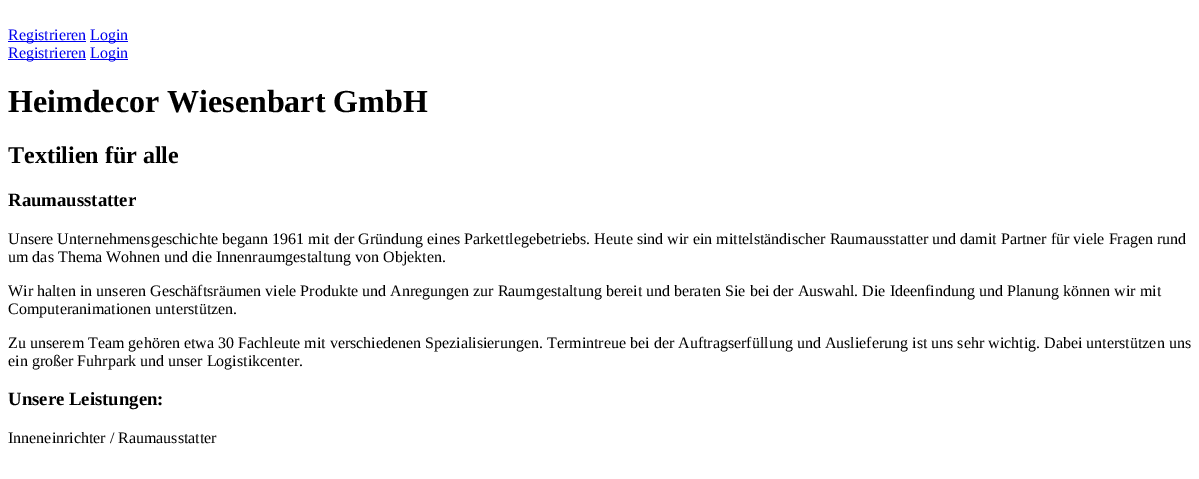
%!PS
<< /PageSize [1199 479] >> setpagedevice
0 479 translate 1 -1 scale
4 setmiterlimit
1 setgray
0 0 1199 479 rectfill
0 0 0.933 setrgbcolor
8 41 78 1 rectfill
/LiberationSerif-Regular [16 0 0 -16 0 0] selectfont
8 40 moveto (Registrieren) show
90 41 38 1 rectfill
90 40 moveto (Login) show
8 59 78 1 rectfill
8 58 moveto (Registrieren) show
90 59 38 1 rectfill
90 58 moveto (Login) show
/LiberationSerif-Bold [32 0 0 -32 0 0] selectfont
0 setgray
8 112 moveto (Heimdecor Wiesenbart GmbH) show
/LiberationSerif-Bold [24 0 0 -24 0 0] selectfont
8 163 moveto (Textilien für alle) show
/LiberationSerif-Bold [18.75 0 0 -18.75 0 0] selectfont
8 206 moveto (Raumausstatter) show
/LiberationSerif-Regular [16 0 0 -16 0 0] selectfont
8 244 moveto (Unsere Unternehmensgeschichte begann 1961 mit der Gründung eines Parkettlegebetriebs. Heute sind wir ein mittelständischer Raumausstatter und damit Partner für viele Fragen rund) show
8 262 moveto (um das Thema Wohnen und die Innenraumgestaltung von Objekten.) show
8 296 moveto (Wir halten in unseren Geschäftsräumen viele Produkte und Anregungen zur Raumgestaltung bereit und beraten Sie bei der Auswahl. Die Ideenfindung und Planung können wir mit) show
8 314 moveto (Computeranimationen unterstützen.) show
8 348 moveto (Zu unserem Team gehören etwa 30 Fachleute mit verschiedenen Spezialisierungen. Termintreue bei der Auftragserfüllung und Auslieferung ist uns sehr wichtig. Dabei unterstützen uns) show
8 366 moveto (ein großer Fuhrpark und unser Logistikcenter.) show
/LiberationSerif-Bold [18.75 0 0 -18.75 0 0] selectfont
8 405 moveto (Unsere Leistungen:) show
/LiberationSerif-Regular [16 0 0 -16 0 0] selectfont
8 443 moveto (Inneneinrichter / Raumausstatter) show
showpage
